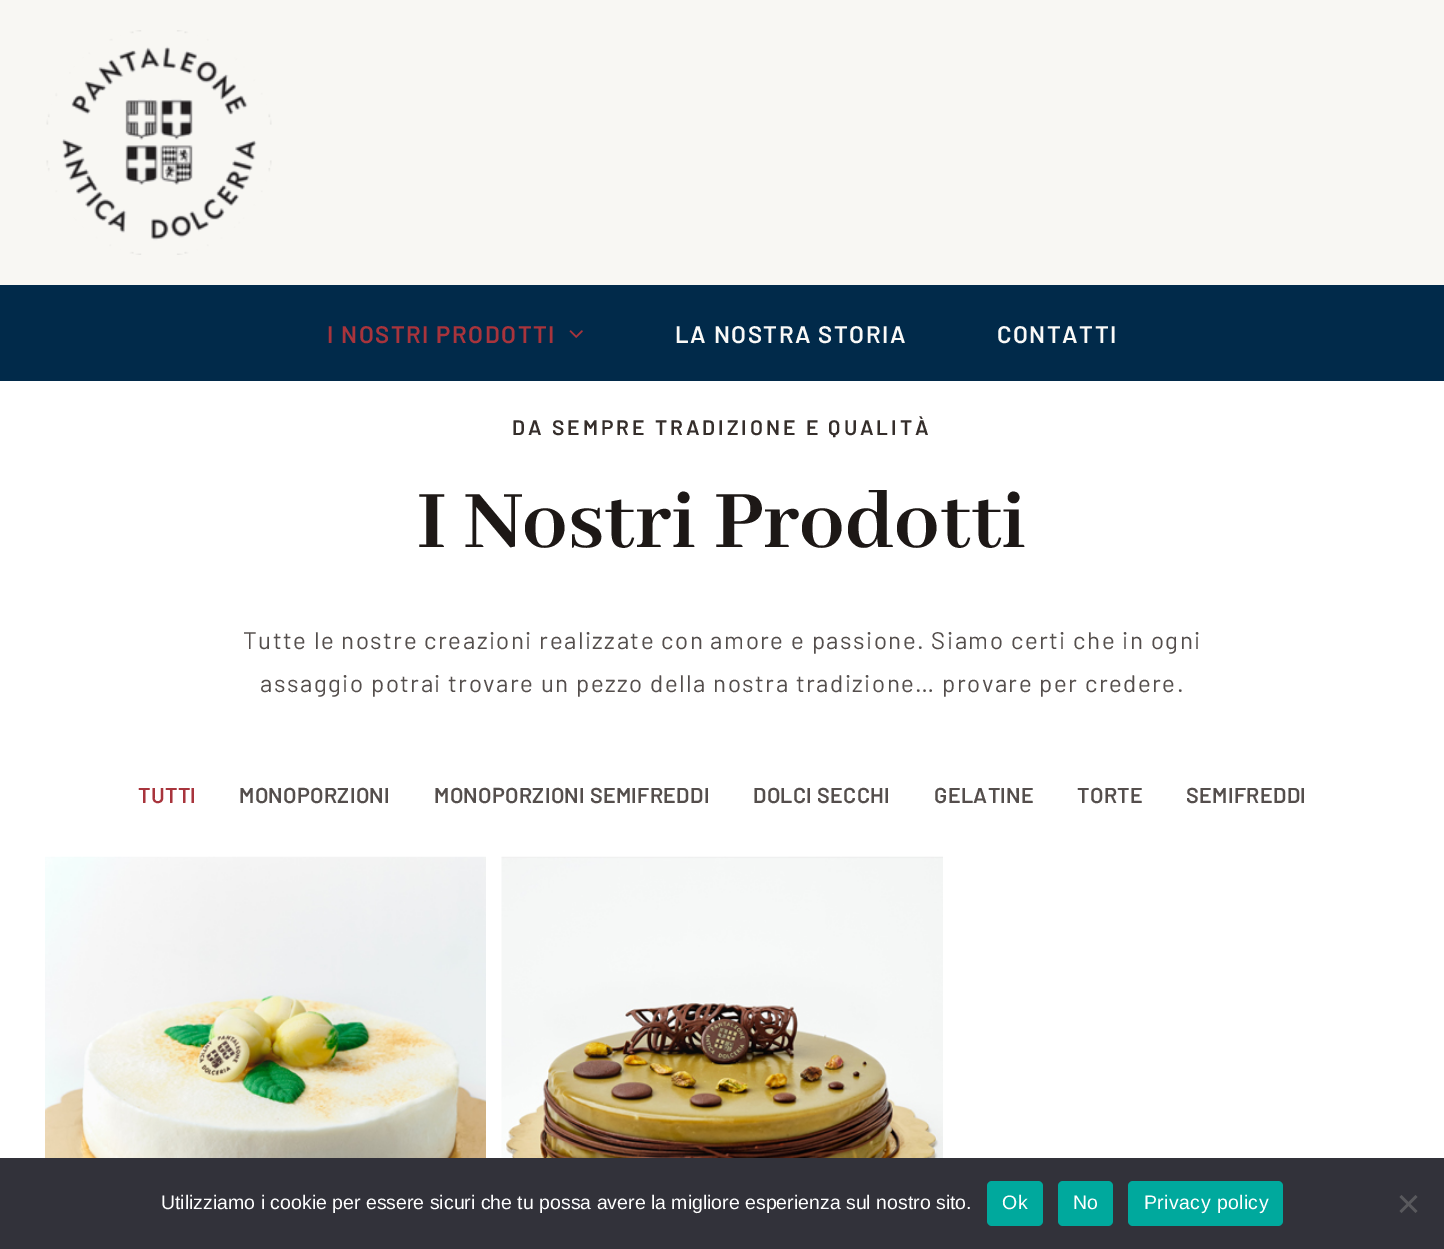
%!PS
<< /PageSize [1444 1249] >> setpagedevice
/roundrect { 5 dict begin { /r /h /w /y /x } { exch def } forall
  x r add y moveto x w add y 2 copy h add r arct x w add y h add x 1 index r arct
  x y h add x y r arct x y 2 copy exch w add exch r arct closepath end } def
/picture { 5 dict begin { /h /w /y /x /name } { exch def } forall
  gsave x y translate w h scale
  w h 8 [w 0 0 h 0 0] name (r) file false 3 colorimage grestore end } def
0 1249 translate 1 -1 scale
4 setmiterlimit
1 setgray
0 0 1444 1249 rectfill
0.973 0.969 0.953 setrgbcolor
0 0 1444 285 rectfill
(img1.rgb) 46 30 226 225 picture
0.004 0.165 0.29 setrgbcolor
0 285 1444 96 rectfill
/Barlow-SemiBold [24 0 0 -24 0 0] selectfont
0.659 0.204 0.235 setrgbcolor
327 343 moveto 1.5 0 (I NOSTRI PRODOTTI) ashow
(img2.rgb) 569 330 14 8 picture
0.98 0.976 0.969 setrgbcolor
675 343 moveto 1.5 0 (LA NOSTRA STORIA) ashow
997 343 moveto 1.5 0 (CONTATTI) ashow
/Barlow-SemiBold [21 0 0 -21 0 0] selectfont
0.208 0.18 0.169 setrgbcolor
512 435 moveto 3 0 (DA SEMPRE TRADIZIONE E QUALITÀ) ashow
/AbhayaLibre-Bold [90 0 0 -90 0 0] selectfont
0.114 0.094 0.086 setrgbcolor
417 547 moveto (I Nostri Prodotti) show
/Barlow-Regular [24 0 0 -24 0 0] selectfont
0.329 0.306 0.298 setrgbcolor
243 649 moveto 1.5 0 (Tutte le nostre creazioni realizzate con amore e passione. Siamo certi che in ogni) ashow
260 692 moveto 1.5 0 (assaggio potrai trovare un pezzo della nostra tradizione… provare per credere.) ashow
/Barlow-SemiBold [21.6 0 0 -21.6 0 0] selectfont
0.659 0.204 0.235 setrgbcolor
138 803 moveto 0.3 0 (TUTTI) ashow
0.329 0.306 0.298 setrgbcolor
239 803 moveto 0.3 0 (MONOPORZIONI) ashow
434 803 moveto 0.3 0 (MONOPORZIONI SEMIFREDDI) ashow
753 803 moveto 0.3 0 (DOLCI SECCHI) ashow
934 803 moveto 0.3 0 (GELATINE) ashow
1077 803 moveto 0.3 0 (TORTE) ashow
1186 803 moveto 0.3 0 (SEMIFREDDI) ashow
(img3.rgb) 45 856 441 302 picture
(img4.rgb) 501 856 442 302 picture
0.196 0.196 0.227 setrgbcolor
0 1158 1444 91 rectfill
/LiberationSans-Regular [19.5 0 0 -19.5 0 0] selectfont
1 setgray
161 1209 moveto (Utilizziamo i cookie per essere sicuri che tu possa avere la migliore esperienza sul nostro sito.) show
0 0.663 0.616 setrgbcolor
987 1181 56 45 5 roundrect fill
1 setgray
1002 1209 moveto 0.4 0 (Ok) ashow
0 0.663 0.616 setrgbcolor
1058 1181 55 45 5 roundrect fill
1 setgray
1073 1209 moveto 0.4 0 (No) ashow
0 0.663 0.616 setrgbcolor
1128 1181 155 45 5 roundrect fill
1 setgray
1144 1209 moveto 0.4 0 (Privacy policy) ashow
0.349 0.349 0.365 setrgbcolor
newpath 1415.5 1195 moveto 1417.5 1197 lineto 1401.5 1213 lineto 1399.5 1211 lineto closepath fill
newpath 1399.5 1197 moveto 1401.5 1195 lineto 1417.5 1211 lineto 1415.5 1213 lineto closepath fill
showpage
